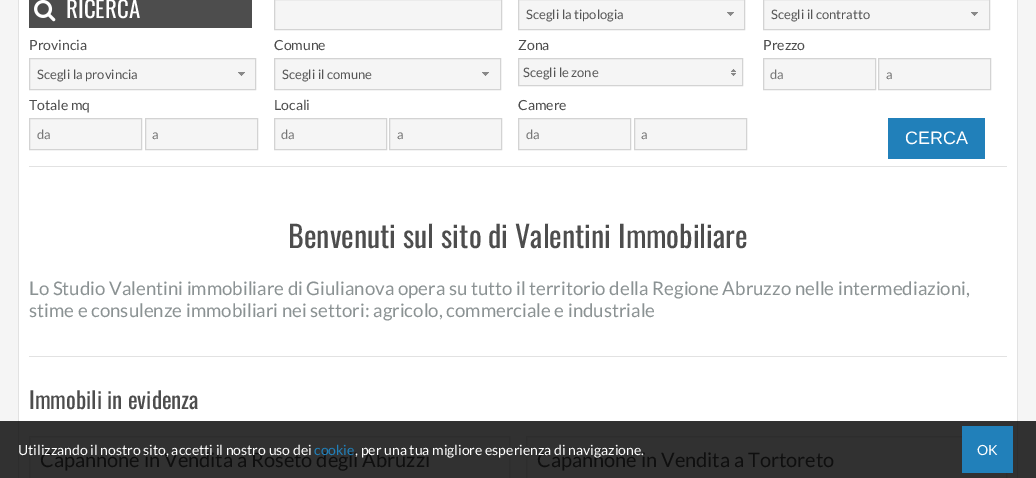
%!PS
<< /PageSize [1036 478] >> setpagedevice
/picture { 5 dict begin { /h /w /y /x /name } { exch def } forall
  gsave x y translate w h scale
  w h 8 [w 0 0 h 0 0] name (r) file false 3 colorimage grestore end } def
0 478 translate 1 -1 scale
4 setmiterlimit
0.961 setgray
0 0 1036 478 rectfill
0.192 setgray
0 421 1036 57 rectfill
1 setgray
19 0 998 421 rectfill
0.886 setgray
1017 0 1 421 rectfill
0.176 setgray
1017 421 1 57 rectfill
0.886 setgray
18 0 1 421 rectfill
0.176 setgray
18 421 1 57 rectfill
0.886 setgray
29 166 978 1 rectfill
0.302 setgray
29 0 223 28 rectfill
(img1.rgb) 34 0 22 22 picture
/Oswald-Regular [23 0 0 -23 0 0] selectfont
1 setgray
66 18 moveto (RICERCA) show
0.961 setgray
newpath 274.5 -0.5 moveto 501.5 -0.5 lineto 501.5 29.5 lineto 274.5 29.5 lineto closepath gsave fill grestore
0.827 setgray
stroke
0.961 setgray
newpath 518.5 -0.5 moveto 744.5 -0.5 lineto 744.5 29.5 lineto 518.5 29.5 lineto closepath gsave fill grestore
0.827 setgray
stroke
/Lato-Regular [13 0 0 -13 0 0] selectfont
0.333 setgray
526 19 moveto (Scegli la tipologia) show
(img2.rgb) 727 12 7 4 picture
0.961 setgray
newpath 763.5 -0.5 moveto 989.5 -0.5 lineto 989.5 29.5 lineto 763.5 29.5 lineto closepath gsave fill grestore
0.827 setgray
stroke
0.333 setgray
771 19 moveto (Scegli il contratto) show
(img2.rgb) 971 12 7 4 picture
/Lato-Regular [14 0 0 -14 0 0] selectfont
0.302 setgray
29 50 moveto (Provincia) show
0.961 setgray
newpath 29.5 58.5 moveto 255.5 58.5 lineto 255.5 89.5 lineto 29.5 89.5 lineto closepath gsave fill grestore
0.827 setgray
stroke
/Lato-Regular [13 0 0 -13 0 0] selectfont
0.333 setgray
37 79 moveto (Scegli la provincia) show
(img2.rgb) 238 72 7 4 picture
/Lato-Regular [14 0 0 -14 0 0] selectfont
0.302 setgray
274 50 moveto (Comune) show
0.961 setgray
newpath 274.5 58.5 moveto 500.5 58.5 lineto 500.5 89.5 lineto 274.5 89.5 lineto closepath gsave fill grestore
0.827 setgray
stroke
/Lato-Regular [13 0 0 -13 0 0] selectfont
0.333 setgray
282 79 moveto (Scegli il comune) show
(img2.rgb) 482 72 7 4 picture
/Lato-Regular [14 0 0 -14 0 0] selectfont
0.302 setgray
518 50 moveto (Zona) show
0.961 setgray
newpath 518.5 58.5 moveto 742.5 58.5 lineto 742.5 85.5 lineto 518.5 85.5 lineto closepath gsave fill grestore
0.827 setgray
stroke
/Lato-Regular [13 0 0 -13 0 0] selectfont
0.333 setgray
523 77 moveto (Scegli le zone) show
(img3.rgb) 731 69 5 7 picture
/Lato-Regular [14 0 0 -14 0 0] selectfont
0.302 setgray
763 50 moveto (Prezzo) show
0.961 setgray
newpath 763.5 58.5 moveto 875.5 58.5 lineto 875.5 89.5 lineto 763.5 89.5 lineto closepath gsave fill grestore
0.827 setgray
stroke
/Lato-Regular [13 0 0 -13 0 0] selectfont
0.459 setgray
770 79 moveto (da) show
0.961 setgray
newpath 878.5 58.5 moveto 990.5 58.5 lineto 990.5 89.5 lineto 878.5 89.5 lineto closepath gsave fill grestore
0.827 setgray
stroke
0.459 setgray
886 79 moveto (a) show
/Lato-Regular [14 0 0 -14 0 0] selectfont
0.302 setgray
29 110 moveto (Totale mq) show
0.961 setgray
newpath 29.5 118.5 moveto 141.5 118.5 lineto 141.5 149.5 lineto 29.5 149.5 lineto closepath gsave fill grestore
0.827 setgray
stroke
/Lato-Regular [13 0 0 -13 0 0] selectfont
0.459 setgray
37 139 moveto (da) show
0.961 setgray
newpath 145.5 118.5 moveto 257.5 118.5 lineto 257.5 149.5 lineto 145.5 149.5 lineto closepath gsave fill grestore
0.827 setgray
stroke
0.459 setgray
152 139 moveto (a) show
/Lato-Regular [14 0 0 -14 0 0] selectfont
0.302 setgray
274 110 moveto (Locali) show
0.961 setgray
newpath 274.5 118.5 moveto 386.5 118.5 lineto 386.5 149.5 lineto 274.5 149.5 lineto closepath gsave fill grestore
0.827 setgray
stroke
/Lato-Regular [13 0 0 -13 0 0] selectfont
0.459 setgray
281 139 moveto (da) show
0.961 setgray
newpath 389.5 118.5 moveto 501.5 118.5 lineto 501.5 149.5 lineto 389.5 149.5 lineto closepath gsave fill grestore
0.827 setgray
stroke
0.459 setgray
397 139 moveto (a) show
/Lato-Regular [14 0 0 -14 0 0] selectfont
0.302 setgray
518 110 moveto (Camere) show
0.961 setgray
newpath 518.5 118.5 moveto 630.5 118.5 lineto 630.5 149.5 lineto 518.5 149.5 lineto closepath gsave fill grestore
0.827 setgray
stroke
/Lato-Regular [13 0 0 -13 0 0] selectfont
0.459 setgray
526 139 moveto (da) show
0.961 setgray
newpath 634.5 118.5 moveto 746.5 118.5 lineto 746.5 149.5 lineto 634.5 149.5 lineto closepath gsave fill grestore
0.827 setgray
stroke
0.459 setgray
641 139 moveto (a) show
0.129 0.502 0.729 setrgbcolor
888 118 97 41 rectfill
/LiberationSans-Regular [18 0 0 -18 0 0] selectfont
1 setgray
905 144 moveto (CERCA) show
0.886 setgray
29 356 978 1 rectfill
/Oswald-Regular [30 0 0 -30 0 0] selectfont
0.302 setgray
288 248 moveto (Benvenuti sul sito di Valentini Immobiliare) show
/Lato-Regular [18.67 0 0 -18.67 0 0] selectfont
0.545 0.573 0.576 setrgbcolor
29 295 moveto (Lo Studio Valentini immobiliare di Giulianova opera su tutto il territorio della Regione Abruzzo nelle intermediazioni,) show
29 317 moveto (stime e consulenze immobiliari nei settori: agricolo, commerciale e industriale) show
/Oswald-Regular [23 0 0 -23 0 0] selectfont
0.302 setgray
29 409 moveto (Immobili in evidenza) show
0.176 setgray
29.5 436.5 480 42 rectstroke
/Lato-Regular [20 0 0 -20 0 0] selectfont
0.059 setgray
40 467 moveto (Capannone in Vendita a Roseto degli Abruzzi) show
0.176 setgray
526.5 436.5 480 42 rectstroke
0.059 setgray
537 467 moveto (Capannone in Vendita a Tortoreto) show
/Lato-Regular [14 0 0 -14 0 0] selectfont
1 setgray
18 455 moveto (Utilizzando il nostro sito, accetti il nostro uso dei) show
0.129 0.502 0.729 setrgbcolor
314 455 moveto (cookie) show
1 setgray
355 455 moveto (, per una tua migliore esperienza di navigazione.) show
0.129 0.502 0.729 setrgbcolor
962 426 51 47 rectfill
1 setgray
977 455 moveto (OK) show
showpage
